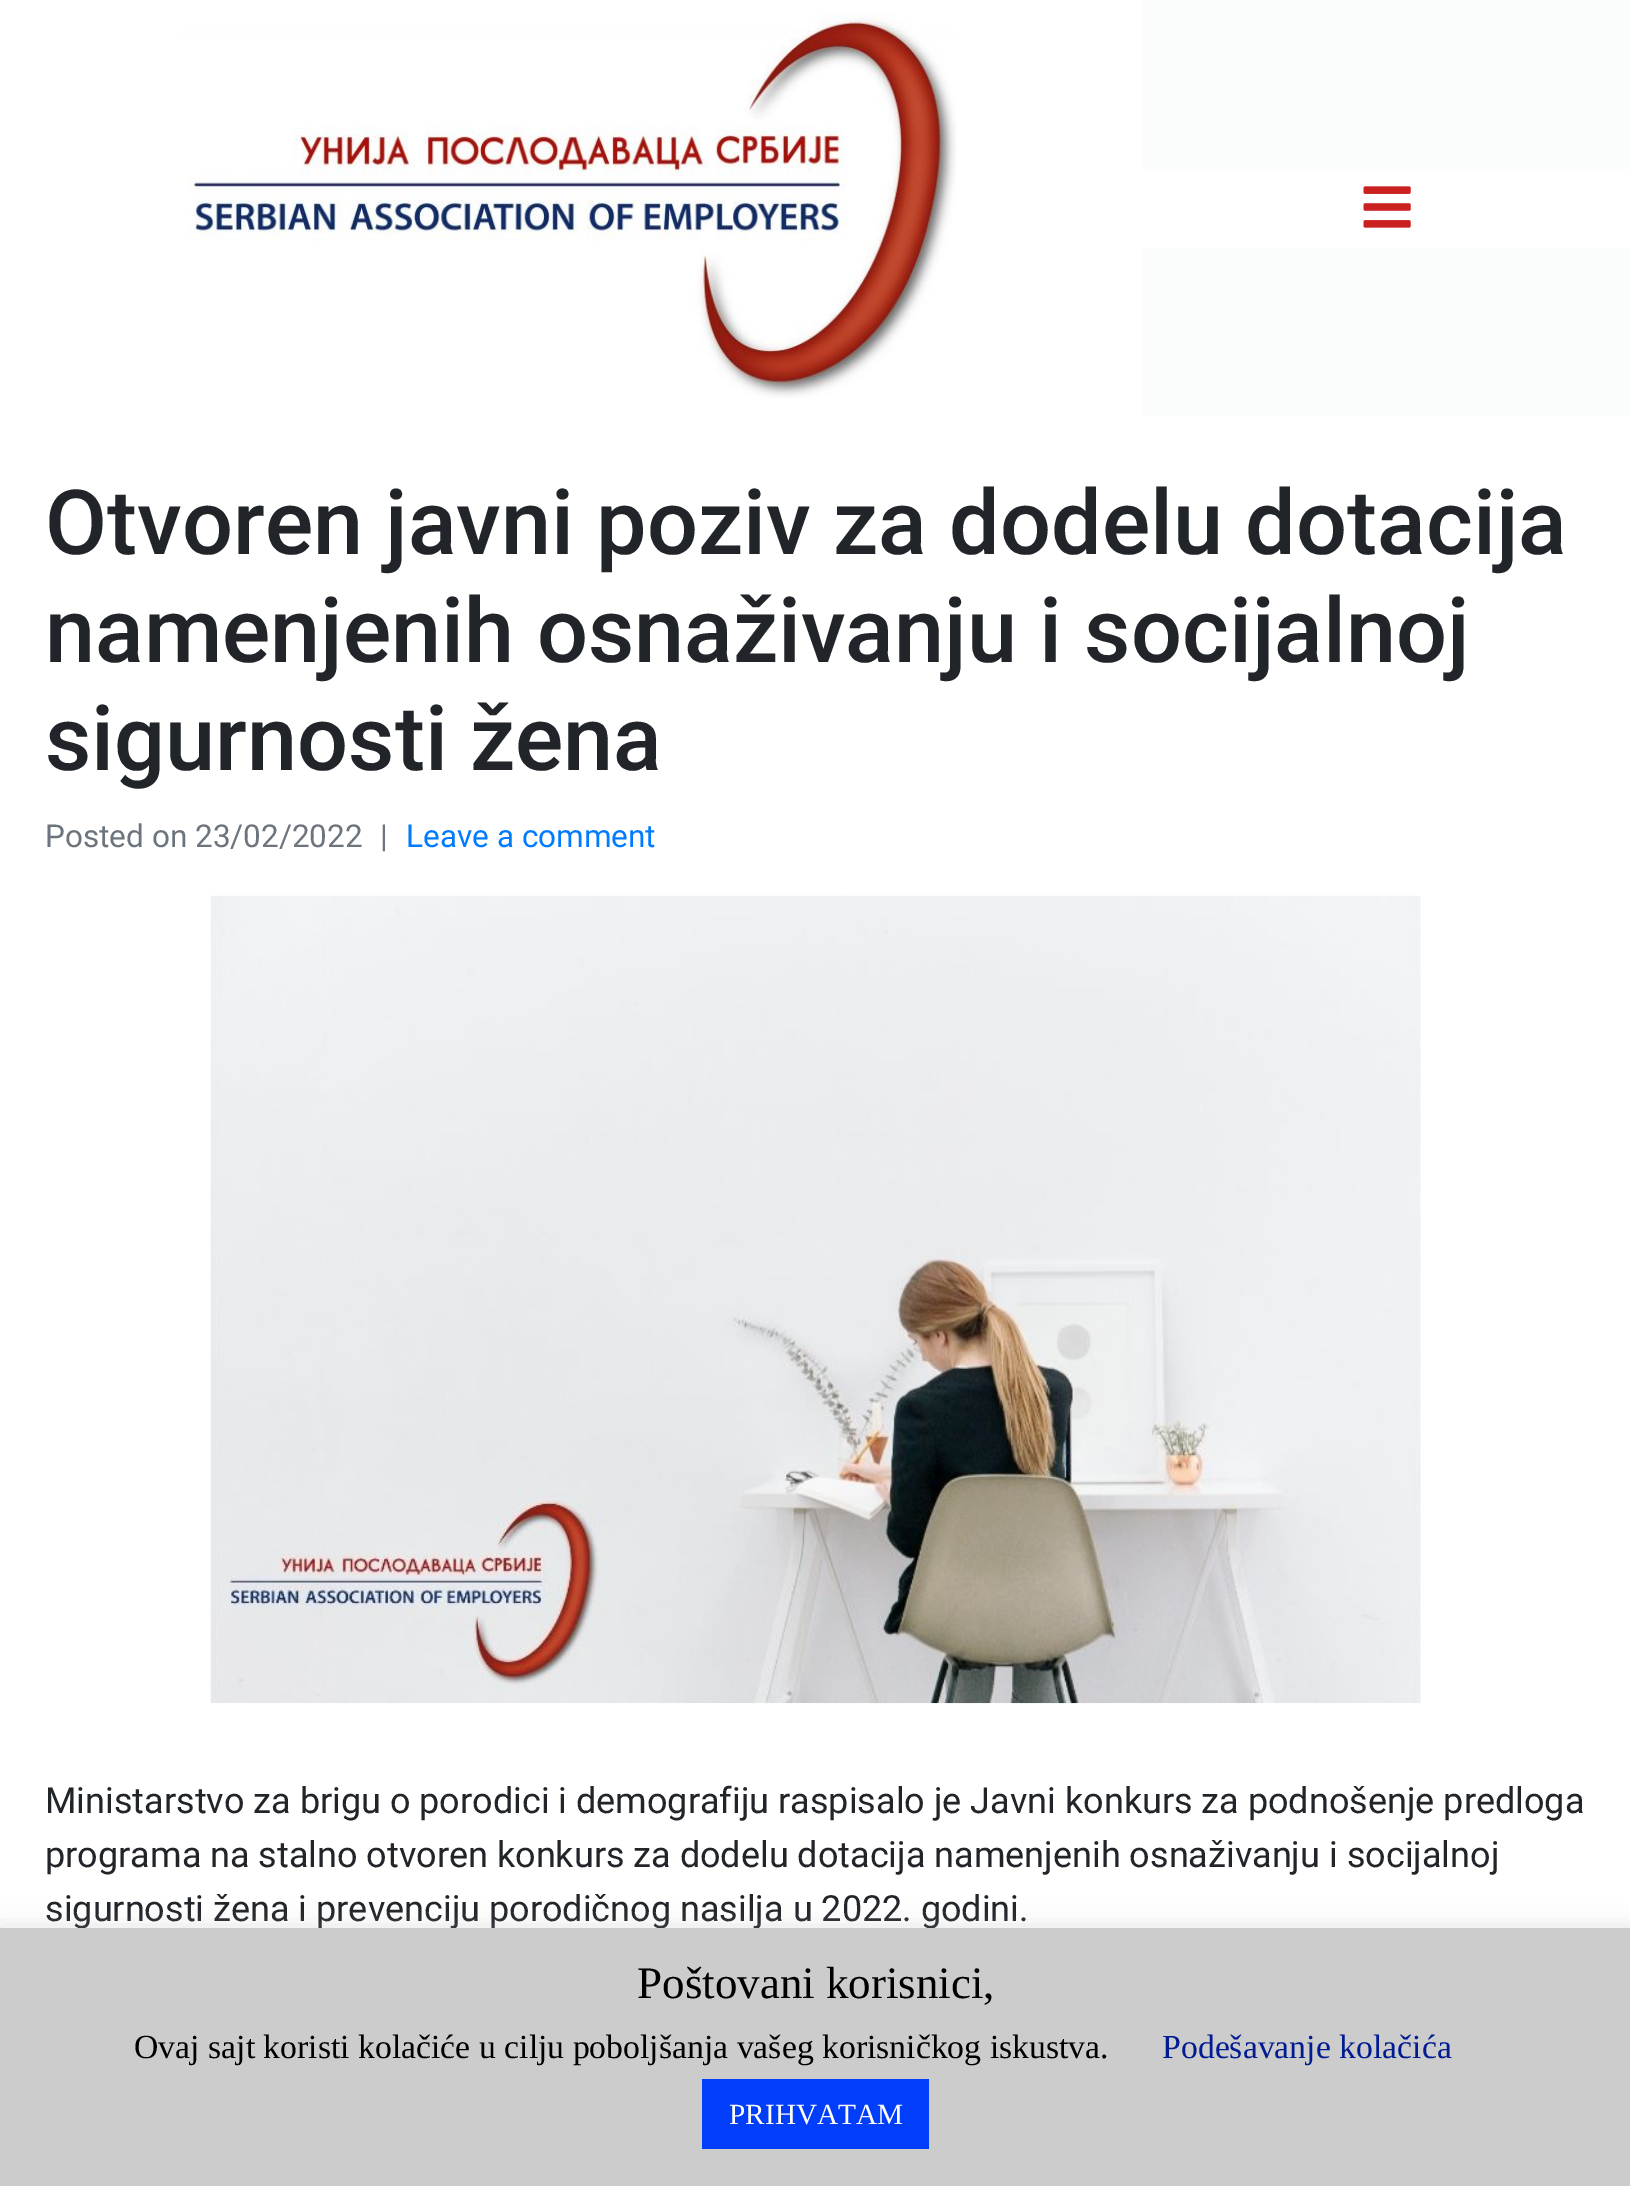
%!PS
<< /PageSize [1630 2186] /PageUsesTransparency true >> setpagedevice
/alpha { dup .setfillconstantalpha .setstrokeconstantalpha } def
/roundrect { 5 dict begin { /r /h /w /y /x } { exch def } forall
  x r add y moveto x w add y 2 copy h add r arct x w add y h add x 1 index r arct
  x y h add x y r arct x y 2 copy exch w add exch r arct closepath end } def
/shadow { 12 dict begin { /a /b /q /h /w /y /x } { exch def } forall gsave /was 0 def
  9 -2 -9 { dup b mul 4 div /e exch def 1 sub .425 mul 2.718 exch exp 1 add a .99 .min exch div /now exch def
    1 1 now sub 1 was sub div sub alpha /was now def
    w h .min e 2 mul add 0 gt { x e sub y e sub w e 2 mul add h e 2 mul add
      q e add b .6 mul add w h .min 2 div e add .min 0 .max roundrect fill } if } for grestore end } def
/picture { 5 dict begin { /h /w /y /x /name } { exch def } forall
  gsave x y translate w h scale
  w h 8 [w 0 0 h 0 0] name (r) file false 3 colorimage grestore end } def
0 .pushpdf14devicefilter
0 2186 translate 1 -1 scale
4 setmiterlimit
1 setgray
0 0 1630 2186 rectfill
0.984 0.988 0.988 setrgbcolor
1143 0 487 416 rectfill
(img1.rgb) 180 13 777 385 picture
1 setgray
1143 169 487 79 rectfill
(img2.rgb) 1363 186 48 42 picture
/Roboto-Medium [90 0 0 -90 0 0] selectfont
0.129 0.145 0.161 setrgbcolor
45 554 moveto (Otvoren javni poziv za dodelu dotacija) show
45 662 moveto (namenjenih osnaživanju i socijalnoj) show
45 770 moveto (sigurnosti žena) show
/Roboto-Regular [31.5 0 0 -31.5 0 0] selectfont
0.424 0.459 0.49 setrgbcolor
45 847 moveto (Posted on 23/02/2022) show
380 847 moveto (|) show
0 0.482 1 setrgbcolor
406 847 moveto (Leave a comment) show
(img3.rgb) 210 895 1211 809 picture
/Roboto-Regular [36 0 0 -36 0 0] selectfont
0.129 0.145 0.161 setrgbcolor
45 1813 moveto (Ministarstvo za brigu o porodici i demografiju raspisalo je Javni konkurs za podnošenje predloga) show
45 1867 moveto (programa na stalno otvoren konkurs za dodelu dotacija namenjenih osnaživanju i socijalnoj) show
45 1921 moveto (sigurnosti žena i prevenciju porodičnog nasilja u 2022. godini.) show
0.675 0.671 0.671 setrgbcolor
0 1926 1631 259 0 11 0.3 shadow
0.8 setgray
0 1928 1630 258 rectfill
/LiberationSerif-Regular [45 0 0 -45 0 0] selectfont
0 setgray
637 1998 moveto (Poštovani korisnici,) show
/LiberationSerif-Regular [33.75 0 0 -33.75 0 0] selectfont
134 2058 moveto (Ovaj sajt koristi kolačiće u cilju poboljšanja vašeg korisničkog iskustva.) show
0.004 0.106 0.569 setrgbcolor
1162 2058 moveto (Podešavanje kolačića) show
0 0.243 0.976 setrgbcolor
702 2079 227 70 rectfill
/LiberationSerif-Regular [29.25 0 0 -29.25 0 0] selectfont
1 setgray
729 2124 moveto (PRIHVATAM) show
.poppdf14devicefilter showpage
